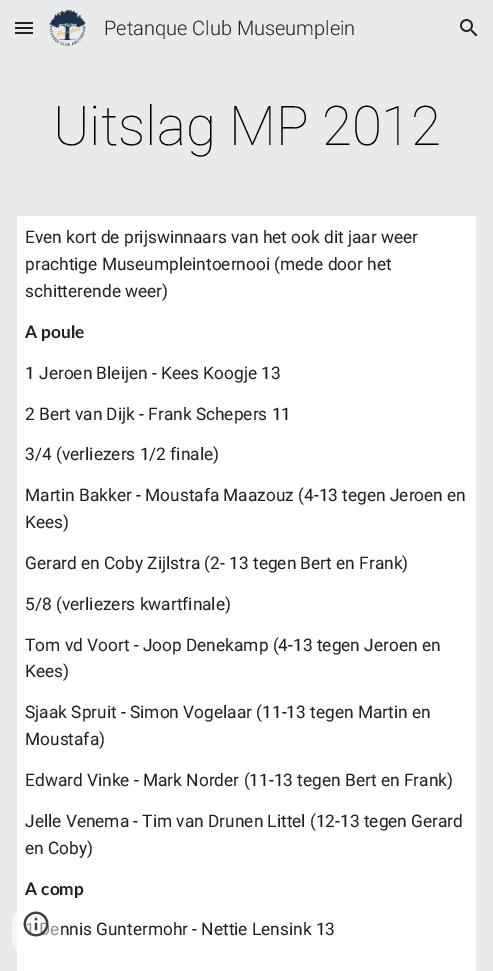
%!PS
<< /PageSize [493 971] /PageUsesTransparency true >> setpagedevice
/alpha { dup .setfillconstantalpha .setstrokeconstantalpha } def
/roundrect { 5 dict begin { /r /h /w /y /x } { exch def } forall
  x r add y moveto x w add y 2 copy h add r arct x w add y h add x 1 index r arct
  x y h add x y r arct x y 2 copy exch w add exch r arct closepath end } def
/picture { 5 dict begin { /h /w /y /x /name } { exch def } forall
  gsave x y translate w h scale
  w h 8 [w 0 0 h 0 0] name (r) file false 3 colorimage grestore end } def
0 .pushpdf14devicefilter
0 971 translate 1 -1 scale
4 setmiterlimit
0.91 0.918 0.922 setrgbcolor
0 0 493 971 rectfill
0.129 setgray
15 22 18 2 rectfill
15 27 18 2 rectfill
15 32 18 2 rectfill
(img1.rgb) 49 9 37 38 picture
/Roboto-Light [20 0 0 -20 0 0] selectfont
104 35 moveto (Petanque Club Museumplein) show
(img2.rgb) 460 19 18 18 picture
/Roboto-Thin [54.75 0 0 -54.75 0 0] selectfont
0 setgray
53 145 moveto (Uitslag MP 2012) show
1 setgray
17 216 459 755 rectfill
/Roboto-Regular [17.3 0 0 -17.3 0 0] selectfont
0.129 setgray
25 243 moveto (Even kort de prijswinnaars van het ook dit jaar weer) show
25 270 moveto (prachtige Museumpleintoernooi \(mede door het) show
25 297 moveto (schitterende weer\)) show
/Lato-Bold [17.3 0 0 -17.3 0 0] selectfont
25 338 moveto (A poule) show
/Roboto-Regular [17.3 0 0 -17.3 0 0] selectfont
25 379 moveto (1 Jeroen Bleijen - Kees Koogje 13) show
25 420 moveto (2 Bert van Dijk - Frank Schepers 11) show
25 460 moveto (3/4 \(verliezers 1/2 finale\)) show
25 501 moveto (Martin Bakker - Moustafa Maazouz \(4-13 tegen Jeroen en) show
25 528 moveto (Kees\)) show
25 569 moveto (Gerard en Coby Zijlstra \(2- 13 tegen Bert en Frank\)) show
25 610 moveto (5/8 \(verliezers kwartfinale\)) show
25 651 moveto (Tom vd Voort - Joop Denekamp \(4-13 tegen Jeroen en) show
25 677 moveto (Kees\)) show
25 718 moveto (Sjaak Spruit - Simon Vogelaar \(11-13 tegen Martin en) show
25 745 moveto (Moustafa\)) show
25 786 moveto (Edward Vinke - Mark Norder \(11-13 tegen Bert en Frank\)) show
25 827 moveto (Jelle Venema - Tim van Drunen Littel \(12-13 tegen Gerard) show
25 854 moveto (en Coby\)) show
/Lato-Bold [17.3 0 0 -17.3 0 0] selectfont
25 895 moveto (A comp) show
/Roboto-Regular [17.3 0 0 -17.3 0 0] selectfont
25 935 moveto (1 Dennis Guntermohr - Nettie Lensink 13) show
0.5 alpha
1 setgray
12 907 48 48 17 roundrect fill
1 alpha
(img3.rgb) 23 911 26 26 picture
.poppdf14devicefilter showpage
